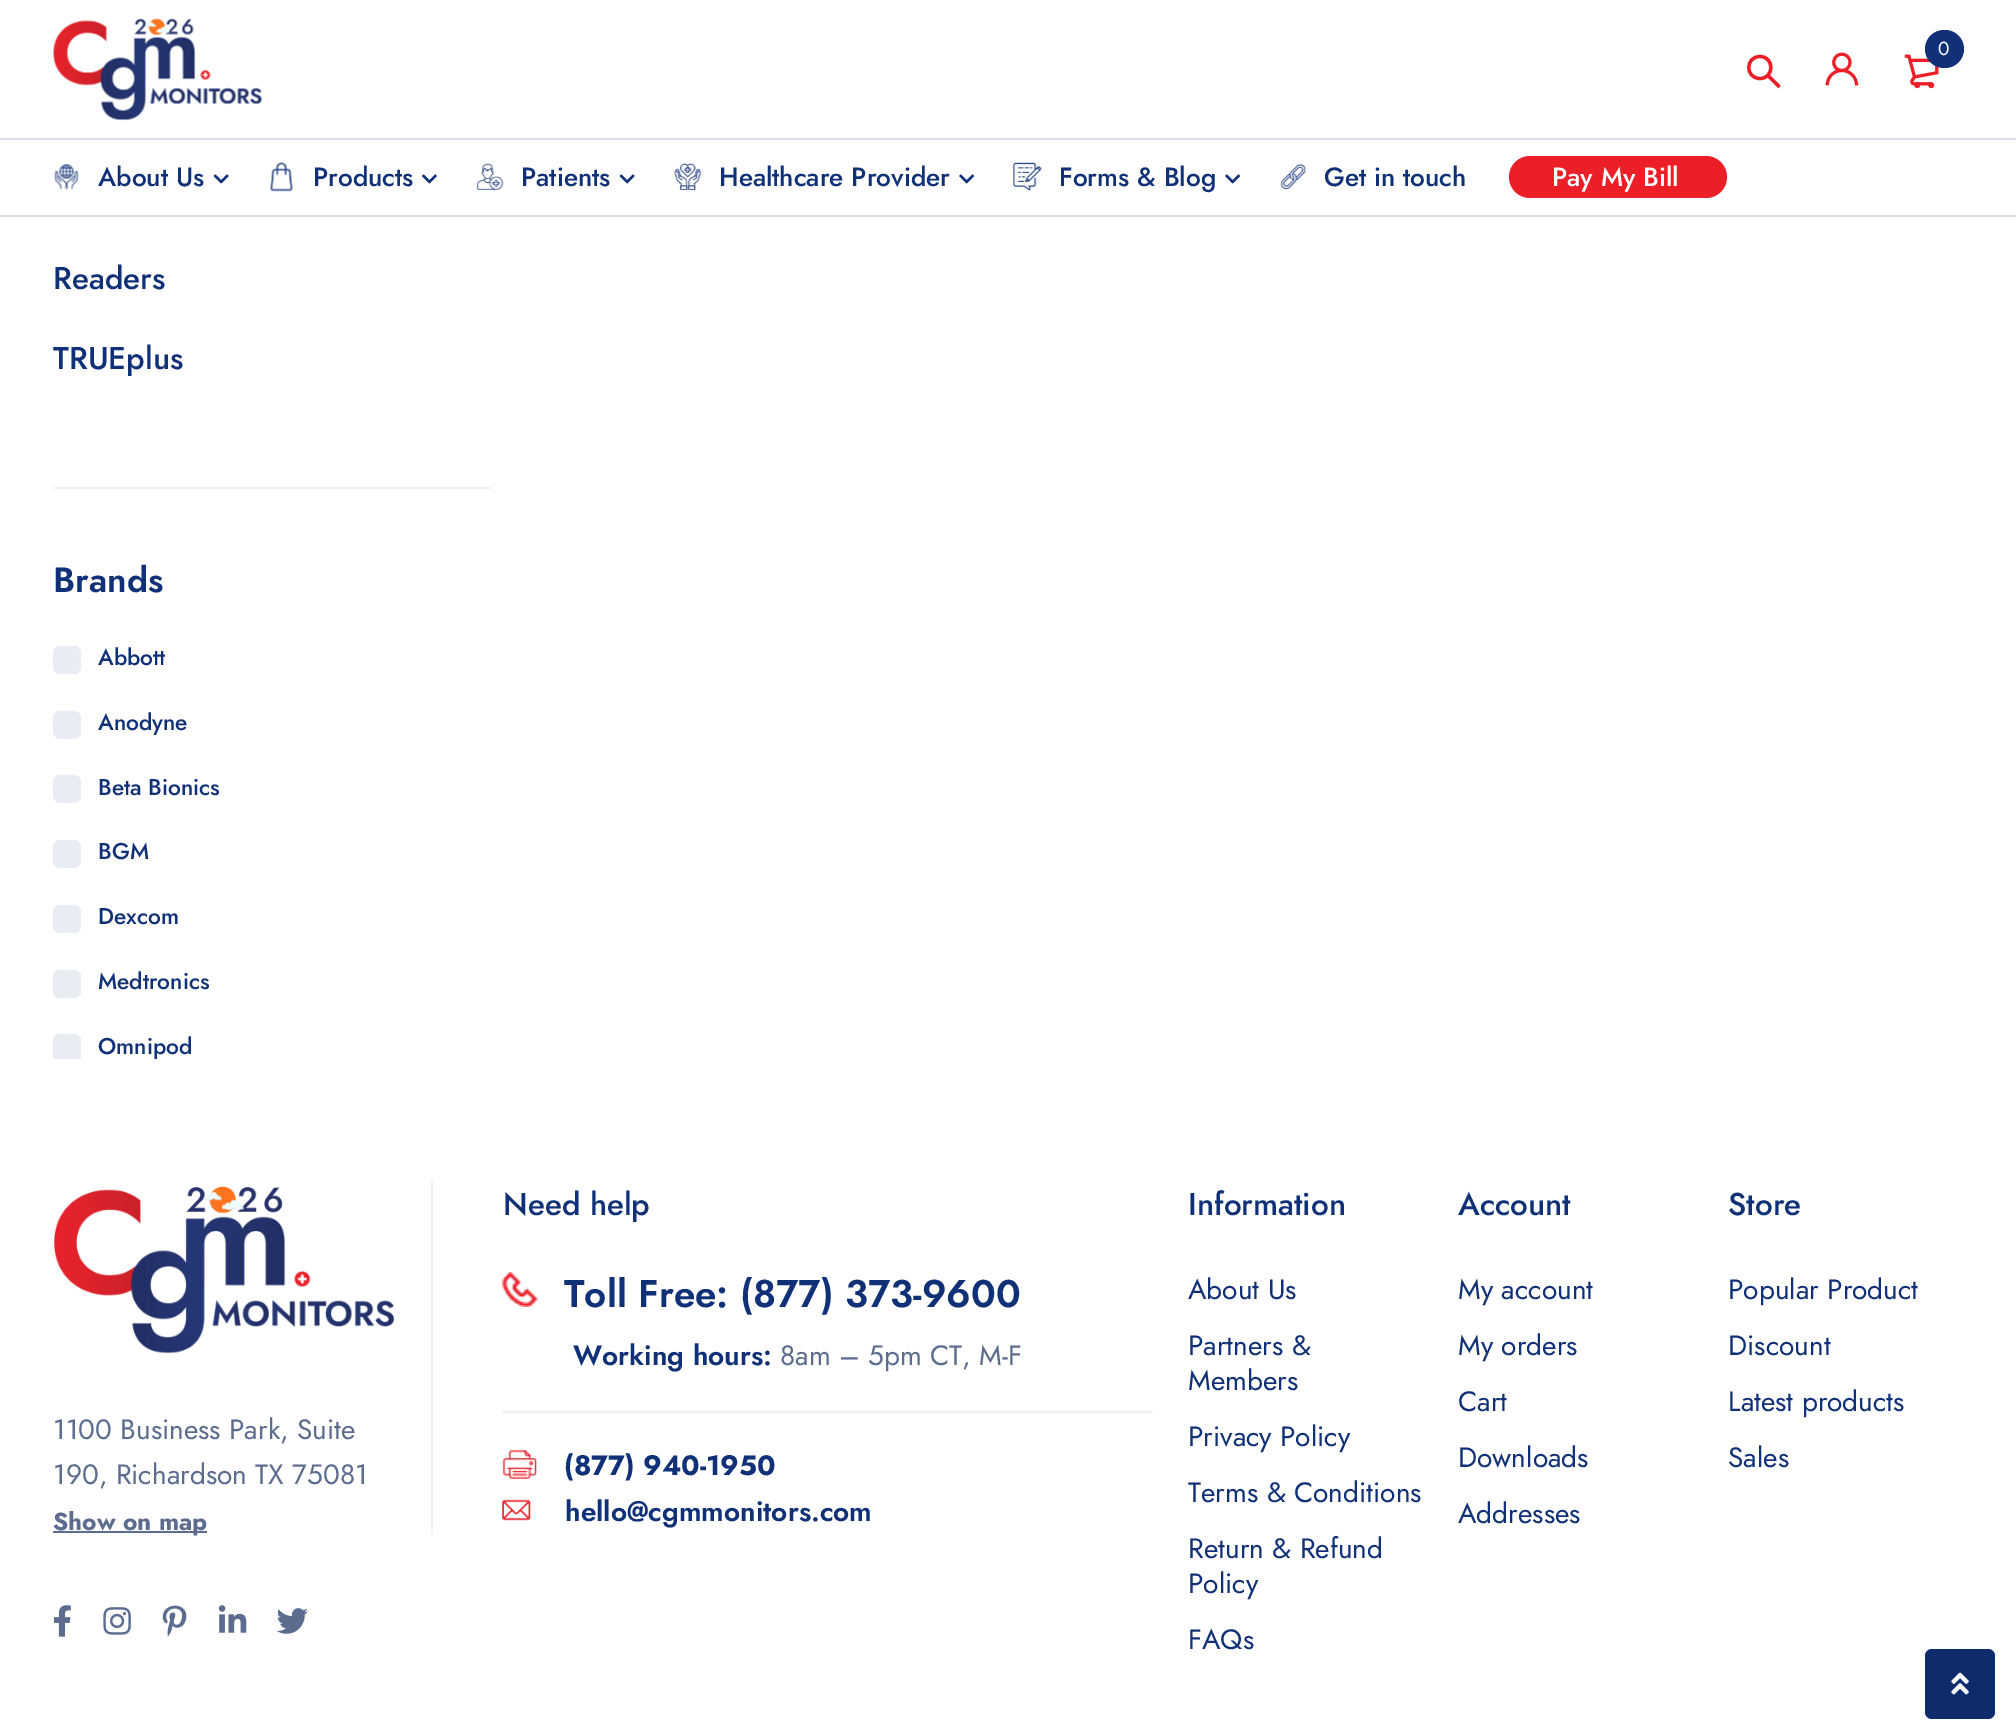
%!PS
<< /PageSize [2016 1735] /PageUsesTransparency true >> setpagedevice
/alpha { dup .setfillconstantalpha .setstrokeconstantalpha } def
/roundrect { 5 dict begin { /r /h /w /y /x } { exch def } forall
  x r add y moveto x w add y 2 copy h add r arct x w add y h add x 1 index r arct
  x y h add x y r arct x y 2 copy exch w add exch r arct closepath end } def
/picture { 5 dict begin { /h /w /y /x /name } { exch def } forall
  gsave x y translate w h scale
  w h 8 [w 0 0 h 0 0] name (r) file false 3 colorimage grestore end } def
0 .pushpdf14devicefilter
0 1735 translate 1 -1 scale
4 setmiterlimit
1 setgray
0 0 2016 1735 rectfill
0.851 0.871 0.91 setrgbcolor
0 138 2016 2 rectfill
(img1.rgb) 53 18 209 103 picture
(img2.rgb) 1904 54 35 35 picture
0.063 0.192 0.471 setrgbcolor
1925 30 39 38 19 roundrect fill
/Jost-Regular [19 0 0 -19 0 0] selectfont
1 setgray
1938 55 moveto (0) show
0.925 0.122 0.161 setrgbcolor
3.3 setlinewidth
newpath 1760 78.5 moveto 1774.5 78.5 1774.5 56.5 1760 56.5 curveto 1745 56.5 1745 78.5 1760 78.5 curveto closepath 1779.5 87 moveto 1767.5 75 lineto stroke
(img3.rgb) 1825 52 34 34 picture
0.851 0.871 0.91 setrgbcolor
0 215 2016 2 rectfill
(img4.rgb) 54 163 25 27 picture
/Jost-Medium [26.25 0 0 -26.25 0 0] selectfont
0.063 0.192 0.471 setrgbcolor
98 186 moveto (About Us) show
(img5.rgb) 213 174 16 10 picture
(img6.rgb) 270 162 23 30 picture
313 186 moveto (Products) show
(img7.rgb) 422 174 15 10 picture
(img8.rgb) 476 163 28 27 picture
521 186 moveto (Patients) show
(img5.rgb) 619 174 16 10 picture
(img9.rgb) 674 163 28 27 picture
719 186 moveto (Healthcare Provider) show
(img10.rgb) 959 174 15 10 picture
(img11.rgb) 1013 162 29 29 picture
1059 186 moveto (Forms & Blog) show
(img10.rgb) 1225 174 15 10 picture
(img12.rgb) 1280 164 27 26 picture
1324 186 moveto (Get in touch) show
0.925 0.122 0.161 setrgbcolor
1509 156 218 42 21 roundrect fill
1 setgray
1552 186 moveto (Pay My Bill) show
/Jost-Medium [31.5 0 0 -31.5 0 0] selectfont
0.063 0.192 0.471 setrgbcolor
53 289 moveto (Readers) show
53 369 moveto (TRUEplus) show
0.941 0.949 0.961 setrgbcolor
53 487 439 2 rectfill
/Jost-SemiBold [35 0 0 -35 0 0] selectfont
0.063 0.192 0.471 setrgbcolor
53 592 moveto (Brands) show
0.91 0.925 0.953 setrgbcolor
53 646 28 28 7 roundrect fill
/Jost-Medium [22.75 0 0 -22.75 0 0] selectfont
0.063 0.192 0.471 setrgbcolor
98 665 moveto (Abbott) show
0.91 0.925 0.953 setrgbcolor
53 711 28 28 7 roundrect fill
0.063 0.192 0.471 setrgbcolor
98 730 moveto (Anodyne) show
0.91 0.925 0.953 setrgbcolor
53 775 28 28 7 roundrect fill
0.063 0.192 0.471 setrgbcolor
98 795 moveto (Beta Bionics) show
0.91 0.925 0.953 setrgbcolor
53 840 28 28 7 roundrect fill
0.063 0.192 0.471 setrgbcolor
98 859 moveto (BGM) show
0.91 0.925 0.953 setrgbcolor
53 905 28 28 7 roundrect fill
0.063 0.192 0.471 setrgbcolor
98 924 moveto (Dexcom) show
0.91 0.925 0.953 setrgbcolor
53 970 28 28 7 roundrect fill
0.063 0.192 0.471 setrgbcolor
98 989 moveto (Medtronics) show
gsave
53 639 439 420 rectclip
0.91 0.925 0.953 setrgbcolor
53 1034 28 28 7 roundrect fill
grestore
98 1054 moveto (Omnipod) show
(img13.rgb) 54 1186 340 168 picture
/Jost-Regular [28 0 0 -28 0 0] selectfont
0.357 0.424 0.561 setrgbcolor
53 1439 moveto (1100 Business Park, Suite) show
53 1484 moveto (190, Richardson TX 75081) show
53 1531 154 2 rectfill
/Jost-Bold [24.5 0 0 -24.5 0 0] selectfont
53 1530 moveto (Show on map) show
(img14.rgb) 53 1605 18 32 picture
(img15.rgb) 103 1607 28 28 picture
(img16.rgb) 162 1605 25 32 picture
(img17.rgb) 218 1605 29 28 picture
(img18.rgb) 276 1608 32 26 picture
0.941 0.949 0.961 setrgbcolor
431 1181 2 354 rectfill
/Jost-Medium [31.5 0 0 -31.5 0 0] selectfont
0.063 0.192 0.471 setrgbcolor
503 1215 moveto (Need help) show
(img19.rgb) 502 1272 36 35 picture
/Jost-SemiBold [38.5 0 0 -38.5 0 0] selectfont
564 1307 moveto (Toll Free: \(877\) 373-9600) show
/Jost-SemiBold [28 0 0 -28 0 0] selectfont
573 1365 moveto (Working hours:) show
/Jost-Regular [28 0 0 -28 0 0] selectfont
0.357 0.424 0.561 setrgbcolor
780 1365 moveto (8am – 5pm CT, M-F) show
0.941 0.949 0.961 setrgbcolor
502 1411 651 2 rectfill
(img20.rgb) 502 1450 35 29 picture
/Jost-Bold [28 0 0 -28 0 0] selectfont
0.063 0.192 0.471 setrgbcolor
564 1475 moveto (\(877\) 940-1950) show
(img21.rgb) 502 1499 29 22 picture
/Jost-SemiBold [28 0 0 -28 0 0] selectfont
565 1521 moveto (hello@cgmmonitors.com) show
/Jost-Medium [31.5 0 0 -31.5 0 0] selectfont
1188 1215 moveto (Information) show
/Jost-Regular [28 0 0 -28 0 0] selectfont
1188 1299 moveto (About Us) show
1188 1355 moveto (Partners &) show
1188 1390 moveto (Members) show
1188 1446 moveto (Privacy Policy) show
1188 1502 moveto (Terms & Conditions) show
1188 1558 moveto (Return & Refund) show
1188 1593 moveto (Policy) show
1188 1649 moveto (FAQs) show
/Jost-Medium [31.5 0 0 -31.5 0 0] selectfont
1458 1215 moveto (Account) show
/Jost-Regular [28 0 0 -28 0 0] selectfont
1458 1299 moveto (My account) show
1458 1355 moveto (My orders) show
1458 1411 moveto (Cart) show
1458 1467 moveto (Downloads) show
1458 1523 moveto (Addresses) show
/Jost-Medium [31.5 0 0 -31.5 0 0] selectfont
1728 1215 moveto (Store) show
/Jost-Regular [28 0 0 -28 0 0] selectfont
1728 1299 moveto (Popular Product) show
1728 1355 moveto (Discount) show
1728 1411 moveto (Latest products) show
1728 1467 moveto (Sales) show
1925 1649 70 70 7 roundrect fill
0.1 alpha
0 setgray
1925 1649 70 70 7 roundrect fill
1 alpha
(img22.rgb) 1951 1672 18 23 picture
.poppdf14devicefilter showpage
